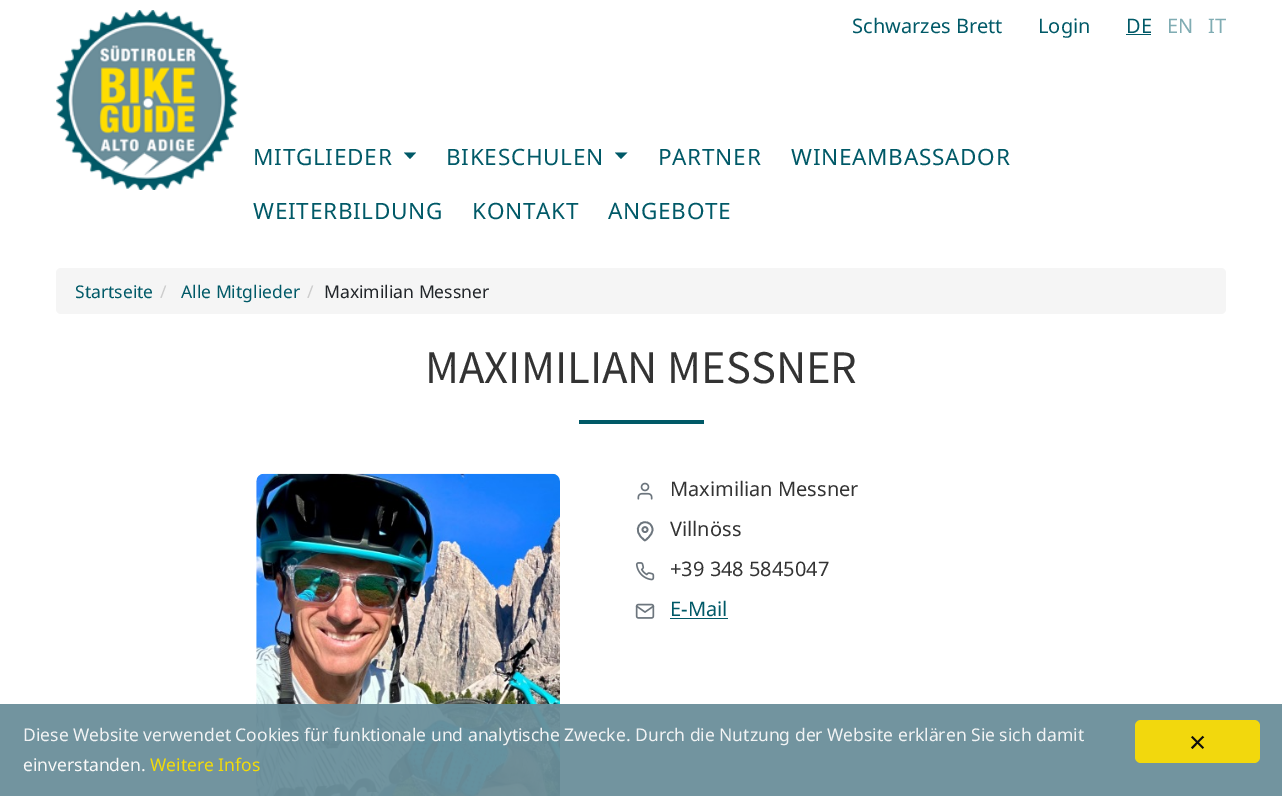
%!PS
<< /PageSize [1282 796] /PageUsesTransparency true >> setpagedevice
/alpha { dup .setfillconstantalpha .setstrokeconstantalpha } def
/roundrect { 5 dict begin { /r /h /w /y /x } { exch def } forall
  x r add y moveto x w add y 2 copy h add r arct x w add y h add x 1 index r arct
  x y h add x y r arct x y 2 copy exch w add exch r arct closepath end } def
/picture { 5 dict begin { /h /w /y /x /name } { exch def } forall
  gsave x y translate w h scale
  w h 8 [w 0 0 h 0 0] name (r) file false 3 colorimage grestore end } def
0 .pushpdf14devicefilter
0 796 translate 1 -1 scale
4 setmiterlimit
1 setgray
0 0 1282 796 rectfill
(img1.rgb) 56 10 182 180 picture
/NotoSans-Regular [20 0 0 -20 0 0] selectfont
0 0.349 0.404 setrgbcolor
852 33 moveto (Schwarzes Brett) show
1038 33 moveto (Login) show
1126 33 moveto (DE) show
1126 34 25 1 rectfill
0.502 0.675 0.702 setrgbcolor
1167 33 moveto (EN) show
1208 33 moveto (IT) show
/NotoSans-Regular [22.5 0 0 -22.5 0 0] selectfont
0 0.349 0.404 setrgbcolor
253 165 moveto 0.75 0 (MITGLIEDER) ashow
newpath 404 152.5 moveto 416 152.5 lineto 410 159 lineto closepath fill
446 165 moveto 0.75 0 (BIKESCHULEN) ashow
newpath 615 152.5 moveto 627.5 152.5 lineto 621 159 lineto closepath fill
658 165 moveto 0.75 0 (PARTNER) ashow
791 165 moveto 0.75 0 (WINEAMBASSADOR) ashow
253 219 moveto 0.75 0 (WEITERBILDUNG) ashow
472 219 moveto 0.75 0 (KONTAKT) ashow
608 219 moveto 0.75 0 (ANGEBOTE) ashow
0.961 setgray
56 268 1170 46 5 roundrect fill
/NotoSans-Regular [17.5 0 0 -17.5 0 0] selectfont
0 0.349 0.404 setrgbcolor
75 298 moveto (Startseite) show
0.8 setgray
160 298 moveto (/) show
0 0.349 0.404 setrgbcolor
181 298 moveto (Alle Mitglieder) show
0.8 setgray
307 298 moveto (/) show
0.129 0.145 0.161 setrgbcolor
324 298 moveto (Maximilian Messner) show
/SourceSansPro-Regular [46.75 0 0 -46.75 0 0] selectfont
0.2 setgray
425 383 moveto (MAXIMILIAN MESSNER) show
0 0.349 0.404 setrgbcolor
579 420 125 4 rectfill
(img2.rgb) 256 473 304 323 picture
(img3.rgb) 637 482 16 18 picture
/NotoSans-Regular [20 0 0 -20 0 0] selectfont
0.2 setgray
670 496 moveto (Maximilian Messner) show
0.424 0.459 0.49 setrgbcolor
1.7 setlinewidth
1 setlinecap
1 setlinejoin
newpath 652.5 529.5 moveto 652.5 535.5 645 540.5 645 540.5 curveto 629.5 530 642.5 516.5 650.5 524.5 curveto 651.5 525.5 652.5 527.5 652.5 529.5 curveto closepath stroke
0.2 setgray
670 536 moveto (Villnöss) show
0.424 0.459 0.49 setrgbcolor
0 setlinecap
0 setlinejoin
newpath 645 529.6 2.5 0 360 arc closepath stroke
(img4.rgb) 635 562 20 19 picture
0.2 setgray
670 576 moveto (+39 348 5845047) show
(img5.rgb) 635 603 20 16 picture
0 0.349 0.404 setrgbcolor
670 616 moveto (E-Mail) show
670 618 58 1 rectfill
0.95 alpha
0.416 0.557 0.604 setrgbcolor
0 704 1282 92 rectfill
/NotoSans-Regular [17.5 0 0 -17.5 0 0] selectfont
1 alpha
0.945 0.953 0.957 setrgbcolor
23 741 moveto (Diese Website verwendet Cookies für funktionale und analytische Zwecke. Durch die Nutzung der Website erklären Sie sich damit) show
0.973 setgray
23 771 moveto (einverstanden.) show
0.949 0.859 0.035 setrgbcolor
150 771 moveto (Weitere Infos) show
0.949 0.847 0.051 setrgbcolor
1135 720 125 43 6 roundrect fill
/NotoSans-Regular [30 0 0 -30 0 0] selectfont
0.051 setgray
1189 753 moveto (×) show
.poppdf14devicefilter showpage
